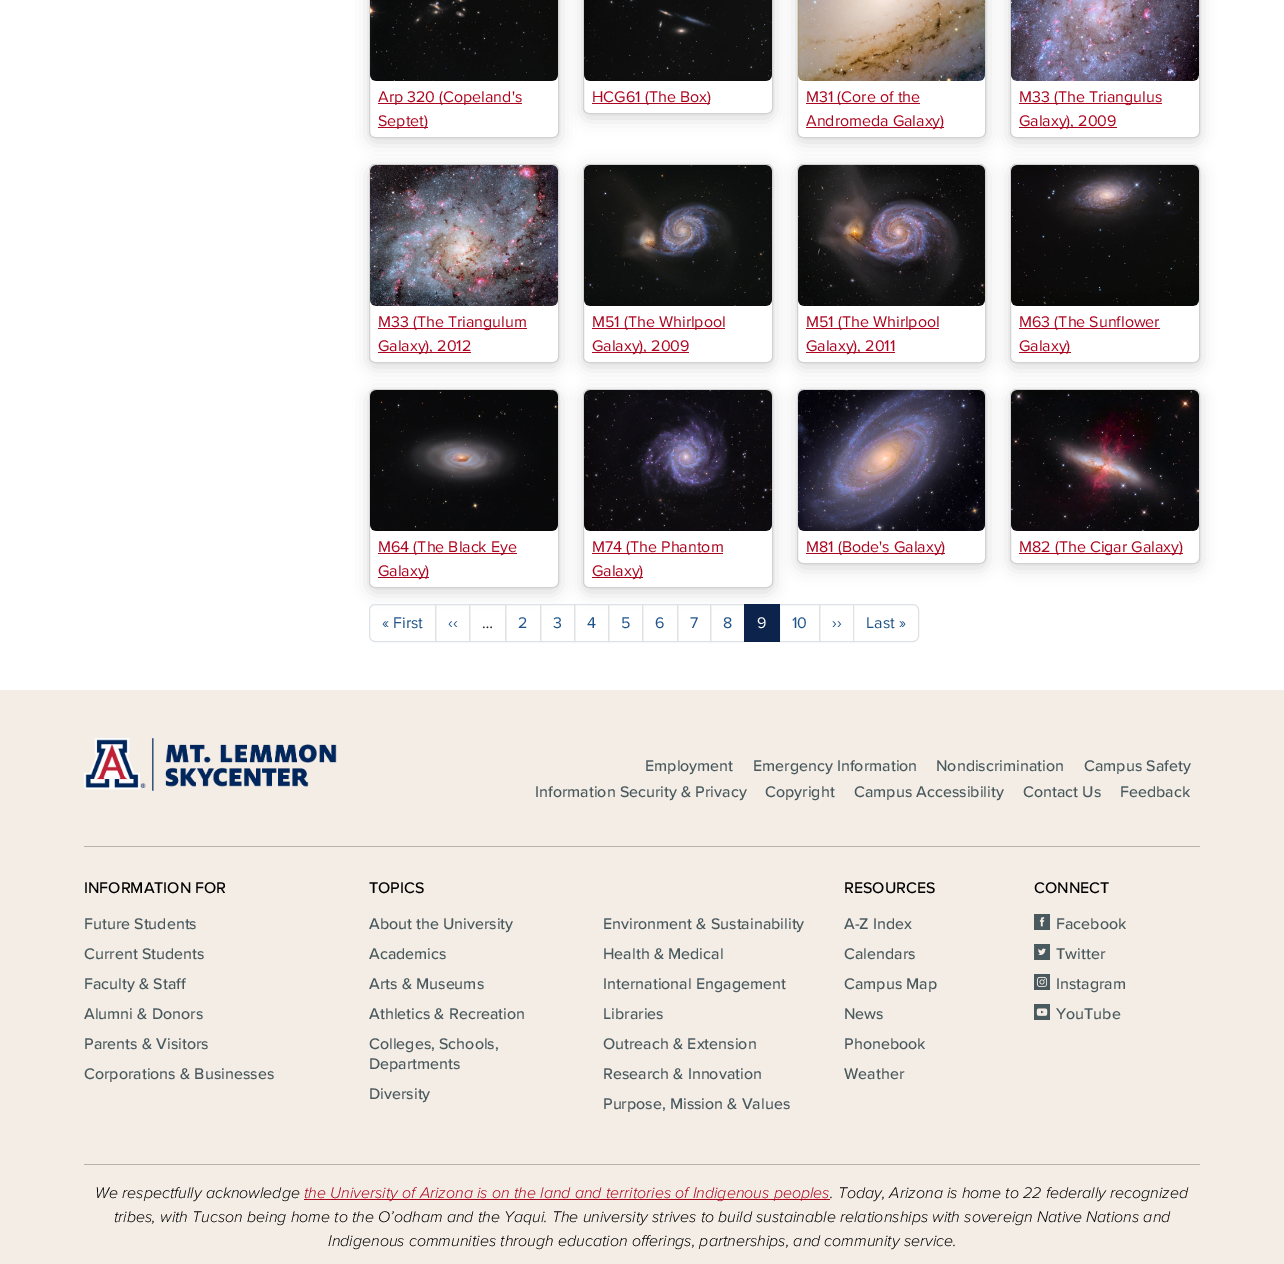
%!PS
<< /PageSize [1284 1264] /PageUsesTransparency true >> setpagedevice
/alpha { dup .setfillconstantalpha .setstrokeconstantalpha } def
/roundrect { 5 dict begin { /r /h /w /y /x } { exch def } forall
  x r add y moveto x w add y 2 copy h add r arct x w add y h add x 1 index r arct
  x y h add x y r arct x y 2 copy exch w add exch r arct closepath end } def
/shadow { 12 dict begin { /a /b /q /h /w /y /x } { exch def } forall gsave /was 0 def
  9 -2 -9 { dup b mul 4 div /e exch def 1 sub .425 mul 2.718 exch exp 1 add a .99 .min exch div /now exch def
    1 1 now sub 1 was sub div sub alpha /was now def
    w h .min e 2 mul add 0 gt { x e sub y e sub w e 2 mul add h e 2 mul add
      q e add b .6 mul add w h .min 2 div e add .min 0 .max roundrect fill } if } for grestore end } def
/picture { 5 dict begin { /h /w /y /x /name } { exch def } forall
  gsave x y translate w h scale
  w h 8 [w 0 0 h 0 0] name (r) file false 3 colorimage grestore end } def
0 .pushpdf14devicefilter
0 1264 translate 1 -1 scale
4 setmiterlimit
1 setgray
0 0 1284 1264 rectfill
0 setgray
369 -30 190 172 6 8 0.15 shadow
1 setgray
369.5 -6.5 189 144 5.5 roundrect gsave fill grestore
0.824 setgray
stroke
(img1.rgb) 370 0 188 81 picture
0.671 0.02 0.125 setrgbcolor
378 103 144 1 rectfill
/ProximaNova-Regular [16 0 0 -16 0 0] selectfont
378 102 moveto (Arp 320 \(Copeland's) show
378 127 50 1 rectfill
378 126 moveto (Septet\)) show
0 setgray
583 -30 190 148 6 8 0.15 shadow
1 setgray
583.5 -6.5 189 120 5.5 roundrect gsave fill grestore
0.824 setgray
stroke
(img2.rgb) 584 0 188 81 picture
0.671 0.02 0.125 setrgbcolor
592 103 118 1 rectfill
592 102 moveto (HCG61 \(The Box\)) show
0 setgray
797 -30 189 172 6 8 0.15 shadow
1 setgray
797.5 -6.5 188 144 5.5 roundrect gsave fill grestore
0.824 setgray
stroke
(img3.rgb) 798 0 187 81 picture
0.671 0.02 0.125 setrgbcolor
806 103 114 1 rectfill
806 102 moveto (M31 \(Core of the) show
806 127 138 1 rectfill
806 126 moveto (Andromeda Galaxy\)) show
0 setgray
1010 -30 190 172 6 8 0.15 shadow
1 setgray
1010.5 -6.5 189 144 5.5 roundrect gsave fill grestore
0.824 setgray
stroke
(img4.rgb) 1011 0 188 81 picture
0.671 0.02 0.125 setrgbcolor
1019 103 143 1 rectfill
1019 102 moveto (M33 \(The Triangulus) show
1019 127 98 1 rectfill
1019 126 moveto (Galaxy\), 2009) show
0 setgray
369 168 190 199 6 8 0.15 shadow
1 setgray
369.5 164.5 189 198 5.5 roundrect gsave fill grestore
0.824 setgray
stroke
(img5.rgb) 370 165 188 141 picture
0.671 0.02 0.125 setrgbcolor
378 328 149 1 rectfill
378 327 moveto (M33 \(The Triangulum) show
378 352 93 1 rectfill
378 351 moveto (Galaxy\), 2012) show
0 setgray
583 168 190 199 6 8 0.15 shadow
1 setgray
583.5 164.5 189 198 5.5 roundrect gsave fill grestore
0.824 setgray
stroke
(img6.rgb) 584 165 188 141 picture
0.671 0.02 0.125 setrgbcolor
592 328 133 1 rectfill
592 327 moveto (M51 \(The Whirlpool) show
592 352 97 1 rectfill
592 351 moveto (Galaxy\), 2009) show
0 setgray
797 168 189 199 6 8 0.15 shadow
1 setgray
797.5 164.5 188 198 5.5 roundrect gsave fill grestore
0.824 setgray
stroke
(img7.rgb) 798 165 187 141 picture
0.671 0.02 0.125 setrgbcolor
806 328 133 1 rectfill
806 327 moveto (M51 \(The Whirlpool) show
806 352 89 1 rectfill
806 351 moveto (Galaxy\), 2011) show
0 setgray
1010 168 190 199 6 8 0.15 shadow
1 setgray
1010.5 164.5 189 198 5.5 roundrect gsave fill grestore
0.824 setgray
stroke
(img8.rgb) 1011 165 188 141 picture
0.671 0.02 0.125 setrgbcolor
1019 328 141 1 rectfill
1019 327 moveto (M63 \(The Sunflower) show
1019 352 52 1 rectfill
1019 351 moveto (Galaxy\)) show
0.871 0.886 0.902 setrgbcolor
469.5 604.5 36 37 rectstroke
0 setgray
369 393 190 199 6 8 0.15 shadow
1 setgray
369.5 389.5 189 198 5.5 roundrect gsave fill grestore
0.824 setgray
stroke
(img9.rgb) 370 390 188 141 picture
0.671 0.02 0.125 setrgbcolor
378 553 139 1 rectfill
378 552 moveto (M64 \(The Black Eye) show
378 577 51 1 rectfill
378 576 moveto (Galaxy\)) show
0 setgray
583 393 190 199 6 8 0.15 shadow
1 setgray
583.5 389.5 189 198 5.5 roundrect gsave fill grestore
0.824 setgray
stroke
(img10.rgb) 584 390 188 141 picture
0.671 0.02 0.125 setrgbcolor
592 553 131 1 rectfill
592 552 moveto (M74 \(The Phantom) show
592 577 51 1 rectfill
592 576 moveto (Galaxy\)) show
0 setgray
797 393 189 175 6 8 0.15 shadow
1 setgray
797.5 389.5 188 174 5.5 roundrect gsave fill grestore
0.824 setgray
stroke
(img11.rgb) 798 390 187 141 picture
0.671 0.02 0.125 setrgbcolor
806 553 139 1 rectfill
806 552 moveto (M81 \(Bode's Galaxy\)) show
0 setgray
1010 393 190 175 6 8 0.15 shadow
1 setgray
1010.5 389.5 189 174 5.5 roundrect gsave fill grestore
0.824 setgray
stroke
(img12.rgb) 1011 390 188 141 picture
0.671 0.02 0.125 setrgbcolor
1019 553 164 1 rectfill
1019 552 moveto (M82 \(The Cigar Galaxy\)) show
0.871 0.886 0.902 setrgbcolor
newpath 375 604.5 moveto 435.5 604.5 lineto 435.5 641.5 lineto 375 641.5 lineto 372 641.5 369.5 639 369.5 636 curveto 369.5 610 lineto 369.5 607 372 604.5 375 604.5 curveto closepath stroke
0.118 0.322 0.533 setrgbcolor
382 628 moveto (« First) show
0.871 0.886 0.902 setrgbcolor
435.5 604.5 34 37 rectstroke
0.118 0.322 0.533 setrgbcolor
448 628 moveto (‹‹) show
0.871 0.886 0.902 setrgbcolor
505.5 604.5 35 37 rectstroke
0.118 0.322 0.533 setrgbcolor
518 628 moveto (2) show
0.871 0.886 0.902 setrgbcolor
540.5 604.5 34 37 rectstroke
0.118 0.322 0.533 setrgbcolor
553 628 moveto (3) show
0.871 0.886 0.902 setrgbcolor
574.5 604.5 34 37 rectstroke
0.118 0.322 0.533 setrgbcolor
587 628 moveto (4) show
0.871 0.886 0.902 setrgbcolor
608.5 604.5 34 37 rectstroke
0.118 0.322 0.533 setrgbcolor
621 628 moveto (5) show
0.871 0.886 0.902 setrgbcolor
642.5 604.5 35 37 rectstroke
0.118 0.322 0.533 setrgbcolor
655 628 moveto (6) show
0.871 0.886 0.902 setrgbcolor
677.5 604.5 33 37 rectstroke
0.118 0.322 0.533 setrgbcolor
690 628 moveto (7) show
0.871 0.886 0.902 setrgbcolor
710.5 604.5 34 37 rectstroke
0.118 0.322 0.533 setrgbcolor
723 628 moveto (8) show
0.871 0.886 0.902 setrgbcolor
779.5 604.5 40 37 rectstroke
0.047 0.137 0.294 setrgbcolor
744 604 36 38 rectfill
1 setgray
757 628 moveto (9) show
0.118 0.322 0.533 setrgbcolor
792 628 moveto (10) show
0.871 0.886 0.902 setrgbcolor
819.5 604.5 34 37 rectstroke
0.118 0.322 0.533 setrgbcolor
832 628 moveto (››) show
1 setgray
newpath 853.5 604.5 moveto 913 604.5 lineto 916 604.5 918.5 607 918.5 610 curveto 918.5 636 lineto 918.5 639 916 641.5 913 641.5 curveto 853.5 641.5 lineto closepath gsave fill grestore
0.871 0.886 0.902 setrgbcolor
stroke
0.118 0.322 0.533 setrgbcolor
866 628 moveto (Last ») show
0.129 0.145 0.161 setrgbcolor
482 628 moveto (…) show
0.957 0.929 0.898 setrgbcolor
0 690 1284 574 rectfill
(img13.rgb) 84 738 253 53 picture
/ProximaNova-Medium [16 0 0 -16 0 0] selectfont
0.286 0.349 0.369 setrgbcolor
645 771 moveto (Employment) show
753 771 moveto (Emergency Information) show
936 771 moveto (Nondiscrimination) show
1084 771 moveto (Campus Safety) show
535 797 moveto (Information Security & Privacy) show
765 797 moveto (Copyright) show
854 797 moveto (Campus Accessibility) show
1023 797 moveto (Contact Us) show
1120 797 moveto (Feedback) show
0.718 0.698 0.675 setrgbcolor
84 846 1116 1 rectfill
0 setgray
84 893 moveto (INFORMATION FOR) show
0.286 0.349 0.369 setrgbcolor
84 929 moveto (Future Students) show
84 959 moveto (Current Students) show
84 989 moveto (Faculty & Staff) show
84 1019 moveto (Alumni & Donors) show
84 1049 moveto (Parents & Visitors) show
84 1079 moveto (Corporations & Businesses) show
0 setgray
369 893 moveto (TOPICS) show
0.286 0.349 0.369 setrgbcolor
369 929 moveto (About the University) show
603 929 moveto (Environment & Sustainability) show
369 959 moveto (Academics) show
603 959 moveto (Health & Medical) show
369 989 moveto (Arts & Museums) show
603 989 moveto (International Engagement) show
369 1019 moveto (Athletics & Recreation) show
603 1019 moveto (Libraries) show
369 1049 moveto (Colleges, Schools,) show
369 1069 moveto (Departments) show
603 1049 moveto (Outreach & Extension) show
603 1079 moveto (Research & Innovation) show
369 1099 moveto (Diversity) show
603 1109 moveto (Purpose, Mission & Values) show
0 setgray
844 893 moveto (RESOURCES) show
0.286 0.349 0.369 setrgbcolor
844 929 moveto (A-Z Index) show
844 959 moveto (Calendars) show
844 989 moveto (Campus Map) show
844 1019 moveto (News) show
844 1049 moveto (Phonebook) show
844 1079 moveto (Weather) show
0 setgray
1034 893 moveto (CONNECT) show
(img14.rgb) 1034 914 16 16 picture
0.286 0.349 0.369 setrgbcolor
1056 929 moveto (Facebook) show
(img15.rgb) 1034 944 16 16 picture
1056 959 moveto (Twitter) show
(img16.rgb) 1034 974 16 16 picture
1056 989 moveto (Instagram) show
(img17.rgb) 1034 1004 16 16 picture
1056 1019 moveto (YouTube) show
0.718 0.698 0.675 setrgbcolor
84 1164 1116 1 rectfill
/ProximaNova-LightItalic [16 0 0 -16 0 0] selectfont
0 setgray
95 1198 moveto (We respectfully acknowledge) show
0.671 0.02 0.125 setrgbcolor
304 1199 526 1 rectfill
304 1198 moveto (the University of Arizona is on the land and territories of Indigenous peoples) show
0 setgray
830 1198 moveto (. Today, Arizona is home to 22 federally recognized) show
114 1222 moveto (tribes, with Tucson being home to the O’odham and the Yaqui. The university strives to build sustainable relationships with sovereign Native Nations and) show
328 1246 moveto (Indigenous communities through education offerings, partnerships, and community service.) show
.poppdf14devicefilter showpage
